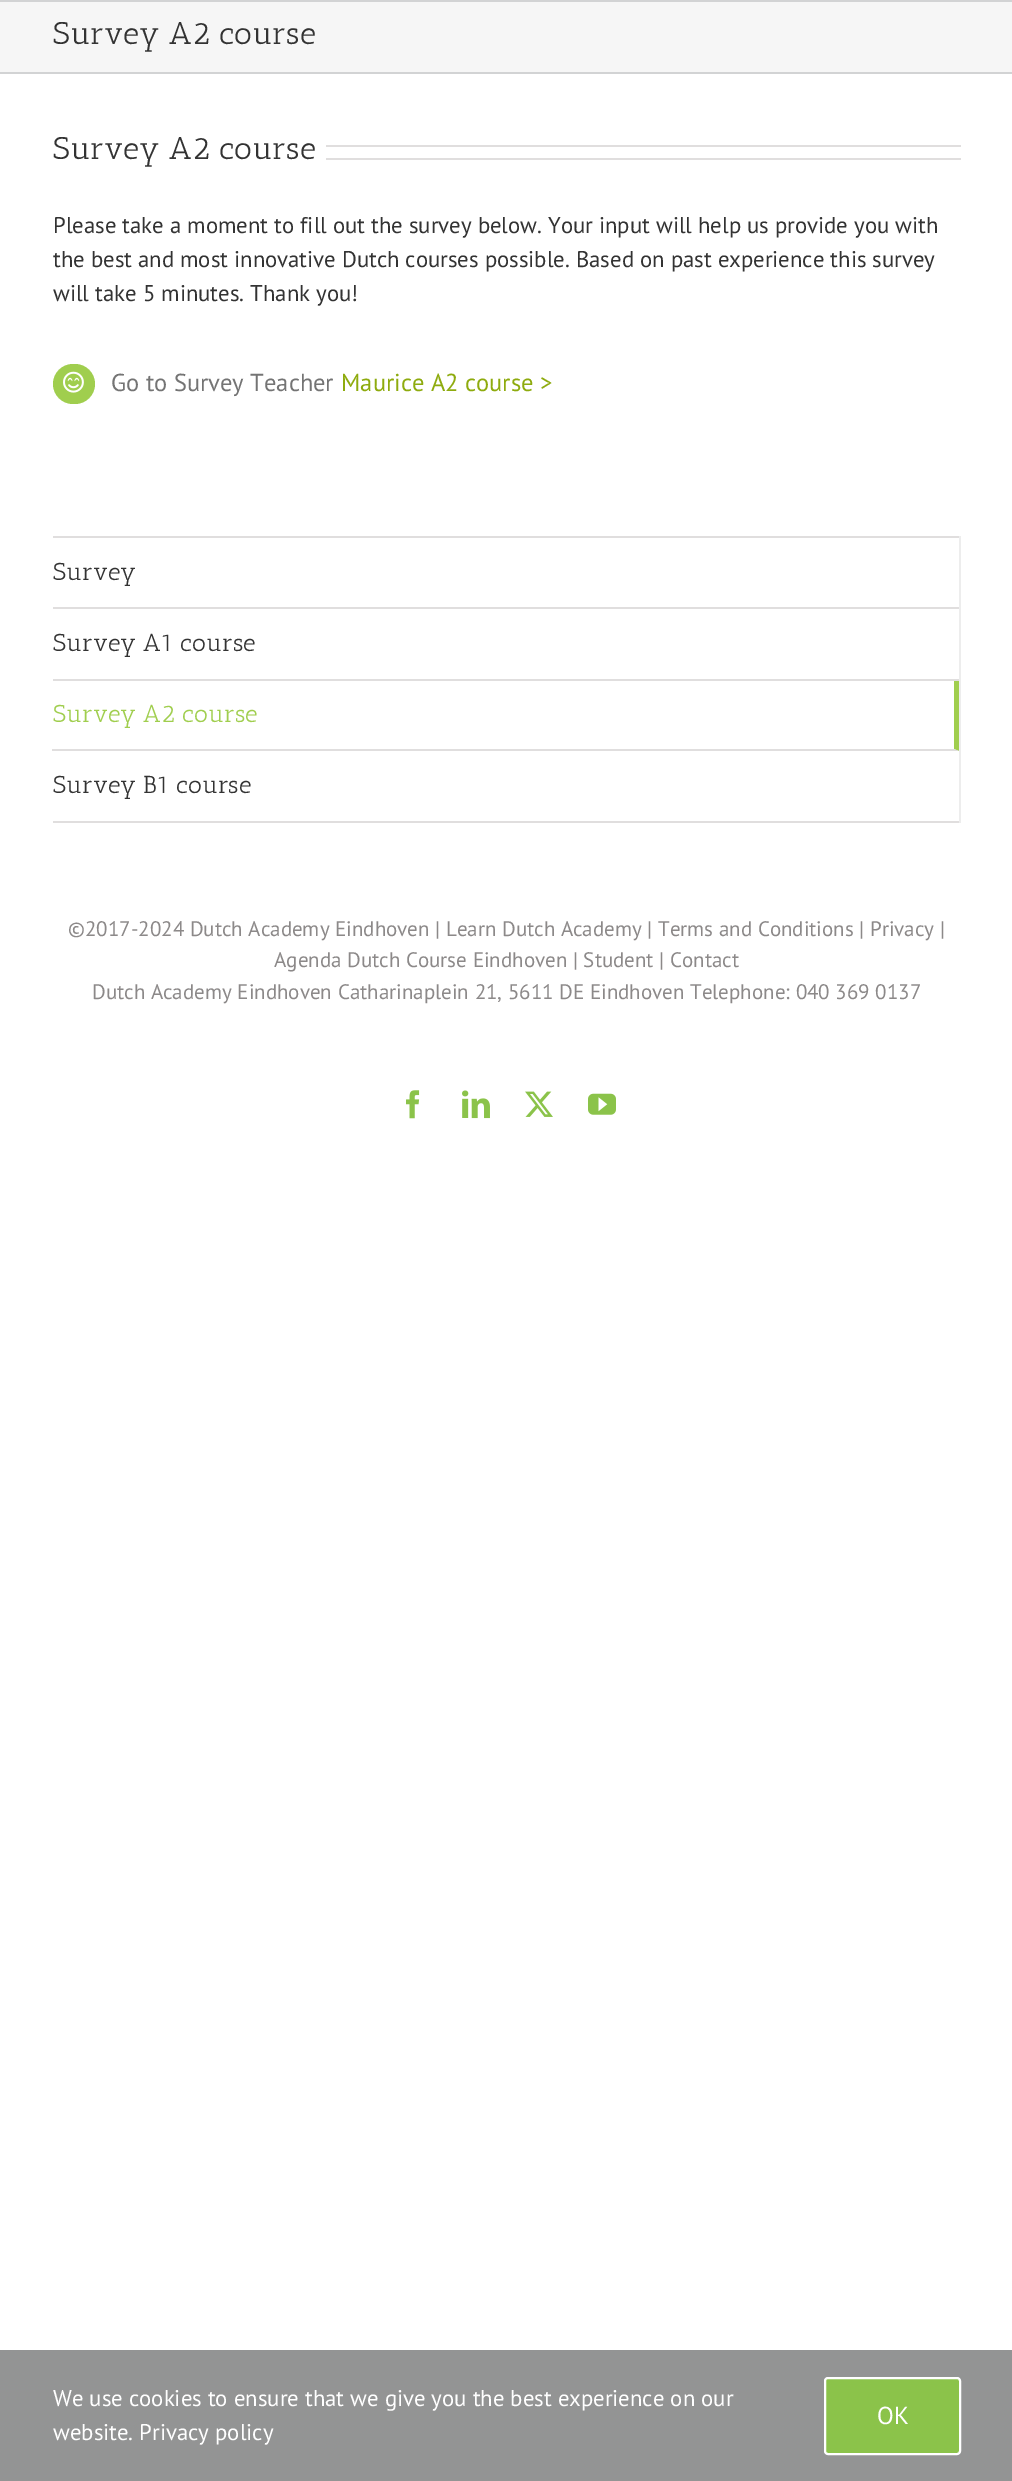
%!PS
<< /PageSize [1012 2481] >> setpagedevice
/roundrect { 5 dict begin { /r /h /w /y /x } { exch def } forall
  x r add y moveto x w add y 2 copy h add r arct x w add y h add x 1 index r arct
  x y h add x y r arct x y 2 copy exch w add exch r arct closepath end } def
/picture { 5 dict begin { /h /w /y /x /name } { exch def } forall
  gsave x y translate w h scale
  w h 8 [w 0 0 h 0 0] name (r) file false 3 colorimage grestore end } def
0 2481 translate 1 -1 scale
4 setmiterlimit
1 setgray
0 0 1012 2481 rectfill
0.965 setgray
0 2 1012 70 rectfill
0.824 0.827 0.831 setrgbcolor
0 0 1012 2 rectfill
0 72 1012 2 rectfill
/AnticSlab-Regular [31.5 0 0 -31.5 0 0] selectfont
0.2 setgray
53 44 moveto (Survey A2 course) show
53 159 moveto (Survey A2 course) show
0.878 0.871 0.871 setrgbcolor
326 145 635 2 rectfill
326 158 635 2 rectfill
/PTSans-Regular [22.75 0 0 -22.75 0 0] selectfont
0.2 setgray
53 233 moveto (Please take a moment to fill out the survey below. Your input will help us provide you with) show
53 267 moveto (the best and most innovative Dutch courses possible. Based on past experience this survey) show
53 301 moveto (will take 5 minutes. Thank you!) show
0.627 0.808 0.306 setrgbcolor
53 364 42 40 20 roundrect fill
(img1.rgb) 63 371 21 22 picture
/PTSans-Regular [24.5 0 0 -24.5 0 0] selectfont
0.455 setgray
111 391 moveto (Go to Survey Teacher) show
0.557 0.671 0.055 setrgbcolor
341 391 moveto (Maurice A2 course >) show
0.878 0.871 0.871 setrgbcolor
53 536 908 2 rectfill
0.929 setgray
959 536 2 287 rectfill
0.878 0.871 0.871 setrgbcolor
53 607 906 2 rectfill
/AnticSlab-Regular [24.5 0 0 -24.5 0 0] selectfont
0.2 setgray
53 580 moveto (Survey) show
0.878 0.871 0.871 setrgbcolor
53 679 906 2 rectfill
0.2 setgray
53 651 moveto (Survey A1 course) show
0.627 0.808 0.306 setrgbcolor
newpath 959 681 moveto 959 751 lineto 954 749 lineto 954 681 lineto closepath fill
0.878 0.871 0.871 setrgbcolor
newpath 959 751 moveto 52 751 lineto 52 749 lineto 954 749 lineto closepath fill
0.627 0.808 0.306 setrgbcolor
53 722 moveto (Survey A2 course) show
0.878 0.871 0.871 setrgbcolor
53 821 906 2 rectfill
0.2 setgray
53 793 moveto (Survey B1 course) show
/PTSans-Regular [21 0 0 -21 0 0] selectfont
0.549 0.537 0.537 setrgbcolor
68 936 moveto (©2017-2024 Dutch Academy Eindhoven | Learn Dutch Academy | Terms and Conditions | Privacy |) show
274 967 moveto (Agenda Dutch Course Eindhoven | Student | Contact) show
92 999 moveto (Dutch Academy Eindhoven Catharinaplein 21, 5611 DE Eindhoven Telephone: 040 369 0137) show
(img2.rgb) 406 1090 14 29 picture
(img3.rgb) 462 1090 28 29 picture
(img4.rgb) 525 1091 28 26 picture
(img5.rgb) 588 1093 28 22 picture
0.576 0.58 0.58 setrgbcolor
0 2350 1012 131 rectfill
/PTSans-Regular [22.75 0 0 -22.75 0 0] selectfont
1 setgray
53 2406 moveto (We use cookies to ensure that we give you the best experience on our) show
53 2440 moveto (website. Privacy policy) show
0.545 0.765 0.29 setrgbcolor
825 2378 135 76 3 roundrect gsave fill grestore
1 setgray
2 setlinewidth
stroke
/PTSans-Regular [24.5 0 0 -24.5 0 0] selectfont
877 2424 moveto (OK) show
showpage
